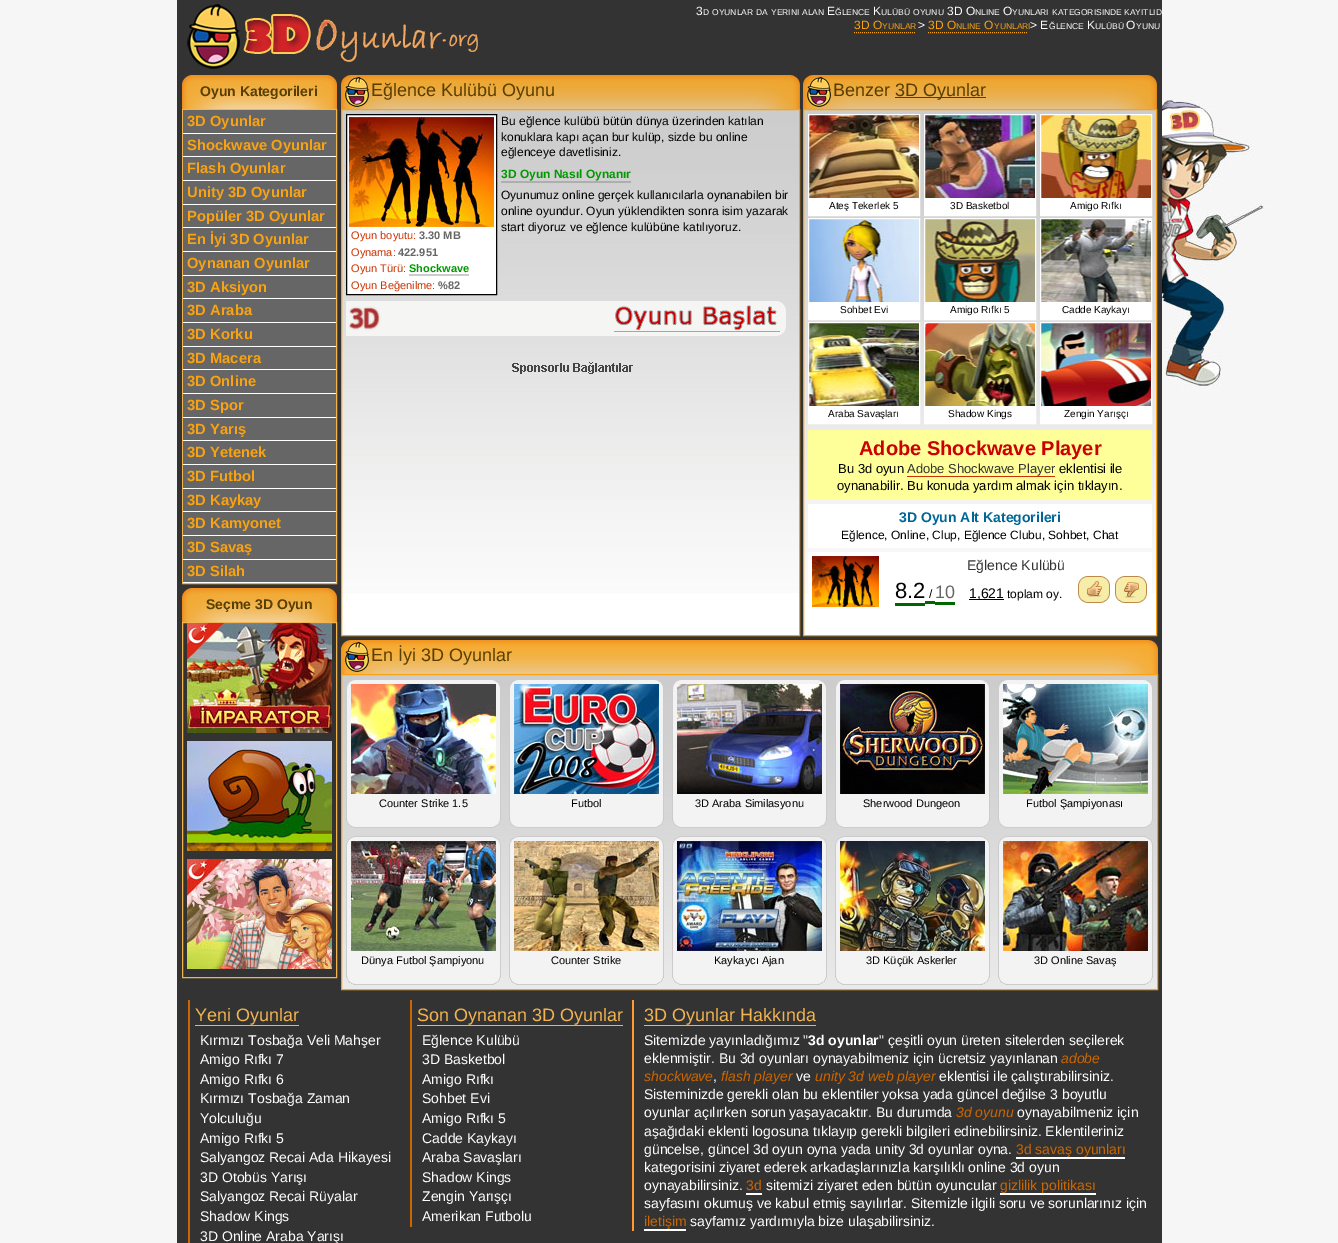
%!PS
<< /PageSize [1338 1243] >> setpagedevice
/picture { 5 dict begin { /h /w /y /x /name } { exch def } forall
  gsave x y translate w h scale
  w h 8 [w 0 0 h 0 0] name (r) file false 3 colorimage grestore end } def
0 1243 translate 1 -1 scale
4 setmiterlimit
0.965 setgray
0 0 1338 1243 rectfill
(img1.rgb) 1162 100 107 288 picture
0.2 setgray
177 0 985 1243 rectfill
(img2.rgb) 187 4 291 65 picture
/LiberationSans-Regular [12 0 0 -12 0 0] selectfont
1 setgray
696 15 moveto (3) show
/LiberationSans-Regular [8.5 0 0 -8.5 0 0] selectfont
703 15 moveto (D) show
712 15 moveto (OYUNLAR) show
756 15 moveto (DA) show
771 15 moveto (YERINI) show
802 15 moveto (ALAN) show
/LiberationSans-Regular [12 0 0 -12 0 0] selectfont
827 15 moveto (E) show
/LiberationSans-Regular [8.5 0 0 -8.5 0 0] selectfont
835 15 moveto (ĞLENCE) show
/LiberationSans-Regular [12 0 0 -12 0 0] selectfont
873 15 moveto (K) show
/LiberationSans-Regular [8.5 0 0 -8.5 0 0] selectfont
881 15 moveto (ULÜBÜ) show
913 15 moveto (OYUNU) show
/LiberationSans-Regular [12 0 0 -12 0 0] selectfont
947 15 moveto (3D O) show
/LiberationSans-Regular [8.5 0 0 -8.5 0 0] selectfont
975 15 moveto (NLINE) show
/LiberationSans-Regular [12 0 0 -12 0 0] selectfont
1003 15 moveto (O) show
/LiberationSans-Regular [8.5 0 0 -8.5 0 0] selectfont
1012 15 moveto (YUNLARI) show
1052 15 moveto (KATEGORISINDE) show
1124 15 moveto (KAYITLID) show
/LiberationSans-Regular [12 0 0 -12 0 0] selectfont
0.976 0.635 0.071 setrgbcolor
854 29 moveto (3D O) show
/LiberationSans-Regular [8.5 0 0 -8.5 0 0] selectfont
882 29 moveto (YUNLAR) show
[1 1] 0 setdash
newpath 854 32.5 moveto 915 32.5 lineto stroke
/LiberationSans-Regular [12 0 0 -12 0 0] selectfont
1 setgray
918 29 moveto (>) show
0.976 0.635 0.071 setrgbcolor
928 29 moveto (3D O) show
/LiberationSans-Regular [8.5 0 0 -8.5 0 0] selectfont
956 29 moveto (NLINE) show
/LiberationSans-Regular [12 0 0 -12 0 0] selectfont
984 29 moveto (O) show
/LiberationSans-Regular [8.5 0 0 -8.5 0 0] selectfont
994 29 moveto (YUNLARI) show
newpath 928 32.5 moveto 1027 32.5 lineto stroke
/LiberationSans-Regular [12 0 0 -12 0 0] selectfont
1 setgray
1030 29 moveto (> E) show
/LiberationSans-Regular [8.5 0 0 -8.5 0 0] selectfont
1049 29 moveto (ĞLENCE) show
/LiberationSans-Regular [12 0 0 -12 0 0] selectfont
1087 29 moveto (K) show
/LiberationSans-Regular [8.5 0 0 -8.5 0 0] selectfont
1095 29 moveto (ULÜBÜ) show
/LiberationSans-Regular [12 0 0 -12 0 0] selectfont
1126 29 moveto (O) show
/LiberationSans-Regular [8.5 0 0 -8.5 0 0] selectfont
1136 29 moveto (YUNU) show
(img3.rgb) 182 75 155 34 picture
/LiberationSans-Bold [14 0 0 -14 0 0] selectfont
0.345 0.243 0.004 setrgbcolor
200 96 moveto (Oyun Kategorileri) show
0.949 0.706 0.314 setrgbcolor
[] 0 setdash
182.5 109.5 154 474 rectstroke
0.4 setgray
183 110 153 23 rectfill
1 setgray
183 133 153 1 rectfill
/LiberationSans-Bold [14.75 0 0 -14.75 0 0] selectfont
0.976 0.635 0.071 setrgbcolor
187 126 moveto (3D Oyunlar) show
0.4 setgray
183 134 153 22 rectfill
1 setgray
183 156 153 1 rectfill
0.976 0.635 0.071 setrgbcolor
187 150 moveto (Shockwave Oyunlar) show
0.4 setgray
183 157 153 23 rectfill
1 setgray
183 180 153 1 rectfill
0.976 0.635 0.071 setrgbcolor
187 173 moveto (Flash Oyunlar) show
0.4 setgray
183 181 153 23 rectfill
1 setgray
183 204 153 1 rectfill
0.976 0.635 0.071 setrgbcolor
187 197 moveto (Unity 3D Oyunlar) show
0.4 setgray
183 205 153 22 rectfill
1 setgray
183 227 153 1 rectfill
0.976 0.635 0.071 setrgbcolor
187 221 moveto (Popüler 3D Oyunlar) show
0.4 setgray
183 228 153 23 rectfill
1 setgray
183 251 153 1 rectfill
0.976 0.635 0.071 setrgbcolor
187 244 moveto (En İyi 3D Oyunlar) show
0.4 setgray
183 252 153 23 rectfill
1 setgray
183 275 153 1 rectfill
0.976 0.635 0.071 setrgbcolor
187 268 moveto (Oynanan Oyunlar) show
0.4 setgray
183 276 153 22 rectfill
1 setgray
183 298 153 1 rectfill
0.976 0.635 0.071 setrgbcolor
187 292 moveto (3D Aksiyon) show
0.4 setgray
183 299 153 23 rectfill
1 setgray
183 322 153 1 rectfill
0.976 0.635 0.071 setrgbcolor
187 315 moveto (3D Araba) show
0.4 setgray
183 323 153 23 rectfill
1 setgray
183 346 153 1 rectfill
0.976 0.635 0.071 setrgbcolor
187 339 moveto (3D Korku) show
0.4 setgray
183 347 153 22 rectfill
1 setgray
183 369 153 1 rectfill
0.976 0.635 0.071 setrgbcolor
187 363 moveto (3D Macera) show
0.4 setgray
183 370 153 23 rectfill
1 setgray
183 393 153 1 rectfill
0.976 0.635 0.071 setrgbcolor
187 386 moveto (3D Online) show
0.4 setgray
183 394 153 23 rectfill
1 setgray
183 417 153 1 rectfill
0.976 0.635 0.071 setrgbcolor
187 410 moveto (3D Spor) show
0.4 setgray
183 418 153 22 rectfill
1 setgray
183 440 153 1 rectfill
0.976 0.635 0.071 setrgbcolor
187 434 moveto (3D Yarış) show
0.4 setgray
183 441 153 23 rectfill
1 setgray
183 464 153 1 rectfill
0.976 0.635 0.071 setrgbcolor
187 457 moveto (3D Yetenek) show
0.4 setgray
183 465 153 23 rectfill
1 setgray
183 488 153 1 rectfill
0.976 0.635 0.071 setrgbcolor
187 481 moveto (3D Futbol) show
0.4 setgray
183 489 153 22 rectfill
1 setgray
183 511 153 1 rectfill
0.976 0.635 0.071 setrgbcolor
187 505 moveto (3D Kaykay) show
0.4 setgray
183 512 153 23 rectfill
1 setgray
183 535 153 1 rectfill
0.976 0.635 0.071 setrgbcolor
187 528 moveto (3D Kamyonet) show
0.4 setgray
183 536 153 23 rectfill
1 setgray
183 559 153 1 rectfill
0.976 0.635 0.071 setrgbcolor
187 552 moveto (3D Savaş) show
0.4 setgray
183 560 153 22 rectfill
1 setgray
183 582 153 1 rectfill
0.976 0.635 0.071 setrgbcolor
187 576 moveto (3D Silah) show
(img3.rgb) 182 588 155 34 picture
/LiberationSans-Bold [14 0 0 -14 0 0] selectfont
0.345 0.243 0.004 setrgbcolor
206 609 moveto (Seçme 3D Oyun) show
0.949 0.706 0.314 setrgbcolor
182.5 622.5 154 355 rectstroke
(img4.rgb) 187 623 145 110 picture
(img5.rgb) 187 741 145 110 picture
(img6.rgb) 187 859 145 110 picture
(img7.rgb) 341 75 459 34 picture
/LiberationSans-Regular [18 0 0 -18 0 0] selectfont
0.345 0.243 0.004 setrgbcolor
371 96 moveto (Eğlence Kulübü Oyunu) show
1 setgray
342 593 457 42 rectfill
(img8.rgb) 342 110 457 483 picture
0.976 0.635 0.071 setrgbcolor
341.5 109.5 458 526 rectstroke
/LiberationSans-Regular [12 0 0 -12 0 0] selectfont
0 setgray
501 125 moveto (Bu eğlence kulübü bütün dünya üzerinden katılan) show
501 141 moveto (konuklara kapı açan bur kulüp, sizde bu online) show
501 156 moveto (eğlenceye davetlisiniz.) show
/LiberationSans-Bold [12 0 0 -12 0 0] selectfont
0 0.6 0 setrgbcolor
501 178 moveto (3D Oyun Nasıl Oynanır) show
0.682 setgray
501 181 130 2 rectfill
/LiberationSans-Regular [12 0 0 -12 0 0] selectfont
0 setgray
501 199 moveto (Oyunumuz online gerçek kullanıcılarla oynanabilen bir) show
501 215 moveto (online oyundur. Oyun yüklendikten sonra isim yazarak) show
501 231 moveto (start diyoruz ve eğlence kulübüne katılıyoruz.) show
1 setgray
newpath 346.5 114.5 moveto 496.5 114.5 lineto 496.5 294.5 lineto 346.5 294.5 lineto closepath gsave fill grestore
0 setgray
stroke
(img9.rgb) 349 117 145 110 picture
/LiberationSans-Regular [11 0 0 -11 0 0] selectfont
0.8 0.2 0 setrgbcolor
351 239 moveto (Oyun boyutu:) show
/LiberationSans-Bold [11 0 0 -11 0 0] selectfont
0.4 setgray
419 239 moveto (3.30 MB) show
/LiberationSans-Regular [11 0 0 -11 0 0] selectfont
0.8 0.2 0 setrgbcolor
351 256 moveto (Oynama:) show
/LiberationSans-Bold [11 0 0 -11 0 0] selectfont
0.4 setgray
398 256 moveto (422.951) show
/LiberationSans-Regular [11 0 0 -11 0 0] selectfont
0.8 0.2 0 setrgbcolor
351 272 moveto (Oyun Türü:) show
/LiberationSans-Bold [11 0 0 -11 0 0] selectfont
0 0.6 0 setrgbcolor
409 272 moveto (Shockwave) show
0.8 setgray
409 274 60 2 rectfill
/LiberationSans-Regular [11 0 0 -11 0 0] selectfont
0.8 0.2 0 setrgbcolor
351 289 moveto (Oyun Beğenilme:) show
/LiberationSans-Bold [11 0 0 -11 0 0] selectfont
0.4 setgray
438 289 moveto (%82) show
(img10.rgb) 346 301 440 35 picture
(img11.rgb) 512 362 121 12 picture
(img12.rgb) 803 75 354 34 picture
/LiberationSans-Regular [18 0 0 -18 0 0] selectfont
0.345 0.243 0.004 setrgbcolor
833 96 moveto (Benzer) show
895 97 91 1 rectfill
895 96 moveto (3D Oyunlar) show
1 setgray
804 593 352 42 rectfill
(img13.rgb) 804 110 352 483 picture
0.976 0.635 0.071 setrgbcolor
803.5 109.5 353 526 rectstroke
(img14.rgb) 809 115 110 83 picture
1 setgray
808.5 114.5 111 101 rectstroke
809 198 110 17 rectfill
/LiberationSans-Regular [10 0 0 -10 0 0] selectfont
0 setgray
829 209 moveto (Ateş Tekerlek 5) show
(img15.rgb) 925 115 110 83 picture
1 setgray
924.5 114.5 111 101 rectstroke
925 198 110 17 rectfill
0 setgray
950 209 moveto (3D Basketbol) show
(img16.rgb) 1041 115 110 83 picture
1 setgray
1040.5 114.5 111 101 rectstroke
1041 198 110 17 rectfill
0 setgray
1070 209 moveto (Amigo Rıfkı) show
(img17.rgb) 809 219 110 83 picture
1 setgray
808.5 218.5 111 101 rectstroke
809 302 110 17 rectfill
0 setgray
840 313 moveto (Sohbet Evi) show
(img18.rgb) 925 219 110 83 picture
1 setgray
924.5 218.5 111 101 rectstroke
925 302 110 17 rectfill
0 setgray
950 313 moveto (Amigo Rıfkı 5) show
(img19.rgb) 1041 219 110 83 picture
1 setgray
1040.5 218.5 111 101 rectstroke
1041 302 110 17 rectfill
0 setgray
1062 313 moveto (Cadde Kaykayı) show
(img20.rgb) 809 323 110 83 picture
1 setgray
808.5 322.5 111 101 rectstroke
809 406 110 17 rectfill
0 setgray
828 417 moveto (Araba Savaşları) show
(img21.rgb) 925 323 110 83 picture
1 setgray
924.5 322.5 111 101 rectstroke
925 406 110 17 rectfill
0 setgray
948 417 moveto (Shadow Kings) show
(img22.rgb) 1041 323 110 83 picture
1 setgray
1040.5 322.5 111 101 rectstroke
1041 406 110 17 rectfill
0 setgray
1064 417 moveto (Zengin Yarışçı) show
1 1 0.6 setrgbcolor
808 430 344 70 rectfill
/LiberationSans-Bold [20 0 0 -20 0 0] selectfont
0.8 0 0 setrgbcolor
859 455 moveto (Adobe Shockwave Player) show
/LiberationSans-Regular [13 0 0 -13 0 0] selectfont
0 setgray
838 473 moveto (Bu 3d oyun) show
0.2 setgray
907 473 moveto (Adobe Shockwave Player) show
0.8 0.2 0 setrgbcolor
907 476 148 1 rectfill
0 setgray
1059 473 moveto (eklentisi ile) show
837 490 moveto (oynanabilir. Bu konuda yardım almak için tıklayın.) show
1 setgray
808 504 344 44 rectfill
/LiberationSans-Bold [14 0 0 -14 0 0] selectfont
0 0.4 0.6 setrgbcolor
899 522 moveto (3D Oyun Alt Kategorileri) show
/LiberationSans-Regular [12 0 0 -12 0 0] selectfont
0 setgray
841 539 moveto (Eğlence, Online, Clup, Eğlence Clubu, Sohbet, Chat) show
1 setgray
808 552 344 41 rectfill
(img23.rgb) 812 556 67 51 picture
/LiberationSans-Regular [14 0 0 -14 0 0] selectfont
0.2 setgray
967 570 moveto (Eğlence Kulübü) show
/LiberationSans-Regular [22 0 0 -22 0 0] selectfont
0 setgray
895 598 moveto (8.2) show
/LiberationSans-Regular [12 0 0 -12 0 0] selectfont
929 598 moveto (/) show
0 0.4 0 setrgbcolor
895 603 30 3 rectfill
925 601 10 3 rectfill
935 602 20 3 rectfill
/LiberationSans-Regular [18 0 0 -18 0 0] selectfont
0.4 setgray
935 598 moveto (10) show
0 setgray
969 599 35 1 rectfill
/LiberationSans-Regular [14 0 0 -14 0 0] selectfont
969 598 moveto (1,621) show
/LiberationSans-Regular [12 0 0 -12 0 0] selectfont
1007 598 moveto (toplam oy.) show
(img24.rgb) 1078 576 32 27 picture
(img25.rgb) 1115 576 32 27 picture
(img26.rgb) 341 640 817 34 picture
/LiberationSans-Regular [18 0 0 -18 0 0] selectfont
0.345 0.243 0.004 setrgbcolor
371 661 moveto (En İyi 3D Oyunlar) show
(img27.rgb) 342 675 815 314 picture
0.976 0.635 0.071 setrgbcolor
341.5 674.5 816 315 rectstroke
(img28.rgb) 346 680 155 148 picture
(img29.rgb) 351 684 145 110 picture
/LiberationSans-Regular [11 0 0 -11 0 0] selectfont
0 setgray
379 807 moveto (Counter Strike 1.5) show
(img28.rgb) 509 680 155 148 picture
(img30.rgb) 514 684 145 110 picture
571 807 moveto (Futbol) show
(img28.rgb) 672 680 155 148 picture
(img31.rgb) 677 684 145 110 picture
695 807 moveto (3D Araba Similasyonu) show
(img28.rgb) 835 680 155 148 picture
(img32.rgb) 840 684 145 110 picture
863 807 moveto (Sherwood Dungeon) show
(img28.rgb) 998 680 155 148 picture
(img33.rgb) 1003 684 145 110 picture
1026 807 moveto (Futbol Şampiyonası) show
(img34.rgb) 346 836 155 149 picture
(img35.rgb) 351 841 145 110 picture
361 964 moveto (Dünya Futbol Şampiyonu) show
(img34.rgb) 509 836 155 149 picture
(img36.rgb) 514 841 145 110 picture
551 964 moveto (Counter Strike) show
(img34.rgb) 672 836 155 149 picture
(img37.rgb) 677 841 145 110 picture
714 964 moveto (Kaykaycı Ajan) show
(img34.rgb) 835 836 155 149 picture
(img38.rgb) 840 841 145 110 picture
866 964 moveto (3D Küçük Askerler) show
(img34.rgb) 998 836 155 149 picture
(img39.rgb) 1003 841 145 110 picture
1034 964 moveto (3D Online Savaş) show
0.8 0.4 0 setrgbcolor
188 1000 2 243 rectfill
/LiberationSans-Regular [18 0 0 -18 0 0] selectfont
0.949 0.706 0.314 setrgbcolor
195 1021 moveto (Yeni Oyunlar) show
195 1025 104 1 rectfill
/LiberationSans-Regular [14 0 0 -14 0 0] selectfont
1 setgray
200 1045 moveto (Kırmızı Tosbağa Veli Mahşer) show
200 1064 moveto (Amigo Rıfkı 7) show
200 1084 moveto (Amigo Rıfkı 6) show
200 1103 moveto (Kırmızı Tosbağa Zaman) show
200 1123 moveto (Yolculuğu) show
200 1143 moveto (Amigo Rıfkı 5) show
200 1162 moveto (Salyangoz Recai Ada Hikayesi) show
200 1182 moveto (3D Otobüs Yarışı) show
200 1201 moveto (Salyangoz Recai Rüyalar) show
200 1221 moveto (Shadow Kings) show
200 1241 moveto (3D Online Araba Yarışı) show
0.8 0.4 0 setrgbcolor
410 1000 2 227 rectfill
/LiberationSans-Regular [18 0 0 -18 0 0] selectfont
0.949 0.706 0.314 setrgbcolor
417 1021 moveto (Son Oynanan 3D Oyunlar) show
417 1025 206 1 rectfill
/LiberationSans-Regular [14 0 0 -14 0 0] selectfont
1 setgray
422 1045 moveto (Eğlence Kulübü) show
422 1064 moveto (3D Basketbol) show
422 1084 moveto (Amigo Rıfkı) show
422 1103 moveto (Sohbet Evi) show
422 1123 moveto (Amigo Rıfkı 5) show
422 1143 moveto (Cadde Kaykayı) show
422 1162 moveto (Araba Savaşları) show
422 1182 moveto (Shadow Kings) show
422 1201 moveto (Zengin Yarışçı) show
422 1221 moveto (Amerikan Futbolu) show
1 0.6 0.2 setrgbcolor
632 1000 2 231 rectfill
/LiberationSans-Regular [18 0 0 -18 0 0] selectfont
0.949 0.706 0.314 setrgbcolor
644 1021 moveto (3D Oyunlar Hakkında) show
644 1025 172 1 rectfill
/LiberationSans-Regular [14 0 0 -14 0 0] selectfont
1 setgray
644 1045 moveto (Sitemizde yayınladığımız ") show
/LiberationSans-Bold [14 0 0 -14 0 0] selectfont
808 1045 moveto (3d oyunlar) show
/LiberationSans-Regular [14 0 0 -14 0 0] selectfont
879 1045 moveto (" çeşitli oyun üreten sitelerden seçilerek) show
644 1063 moveto (eklenmiştir. Bu 3d oyunları oynayabilmeniz için ücretsiz yayınlanan) show
/LiberationSans-Italic [14 0 0 -14 0 0] selectfont
0.8 0.4 0 setrgbcolor
1061 1063 moveto (adobe) show
644 1081 moveto (shockwave) show
/LiberationSans-Regular [14 0 0 -14 0 0] selectfont
1 setgray
713 1081 moveto (,) show
/LiberationSans-Italic [14 0 0 -14 0 0] selectfont
0.8 0.4 0 setrgbcolor
721 1081 moveto (flash player) show
/LiberationSans-Regular [14 0 0 -14 0 0] selectfont
1 setgray
796 1081 moveto (ve) show
/LiberationSans-Italic [14 0 0 -14 0 0] selectfont
0.8 0.4 0 setrgbcolor
815 1081 moveto (unity 3d web player) show
/LiberationSans-Regular [14 0 0 -14 0 0] selectfont
1 setgray
939 1081 moveto (eklentisi ile çalıştırabilirsiniz.) show
644 1099 moveto (Sisteminizde gerekli olan bu eklentiler yoksa yada güncel değilse 3 boyutlu) show
644 1117 moveto (oyunlar açılırken sorun yaşayacaktır. Bu durumda) show
/LiberationSans-Italic [14 0 0 -14 0 0] selectfont
0.8 0.4 0 setrgbcolor
956 1117 moveto (3d oyunu) show
/LiberationSans-Regular [14 0 0 -14 0 0] selectfont
1 setgray
1017 1117 moveto (oynayabilmeniz için) show
644 1136 moveto (aşağıdaki eklenti logosuna tıklayıp gerekli bilgileri edinebilirsiniz. Eklentileriniz) show
644 1154 moveto (güncelse, güncel 3d oyun oyna yada unity 3d oyunlar oyna.) show
0.8 0.4 0 setrgbcolor
1016 1154 moveto (3d savaş oyunları) show
1 setgray
1016 1157 109 2 rectfill
644 1172 moveto (kategorisini ziyaret ederek arkadaşlarınızla karşılıklı online 3d oyun) show
644 1190 moveto (oynayabilirsiniz.) show
0.8 0.4 0 setrgbcolor
746 1190 moveto (3d) show
1 setgray
746 1193 16 2 rectfill
766 1190 moveto (sitemizi ziyaret eden bütün oyuncular) show
0.8 0.4 0 setrgbcolor
1000 1190 moveto (gizlilik politikası) show
1 setgray
1000 1193 96 2 rectfill
644 1208 moveto (sayfasını okumuş ve kabul etmiş sayılırlar. Sitemizle ilgili soru ve sorunlarınız için) show
0.8 0.4 0 setrgbcolor
644 1226 moveto (iletişim) show
1 setgray
644 1229 42 2 rectfill
690 1226 moveto (sayfamız yardımıyla bize ulaşabilirsiniz.) show
showpage
